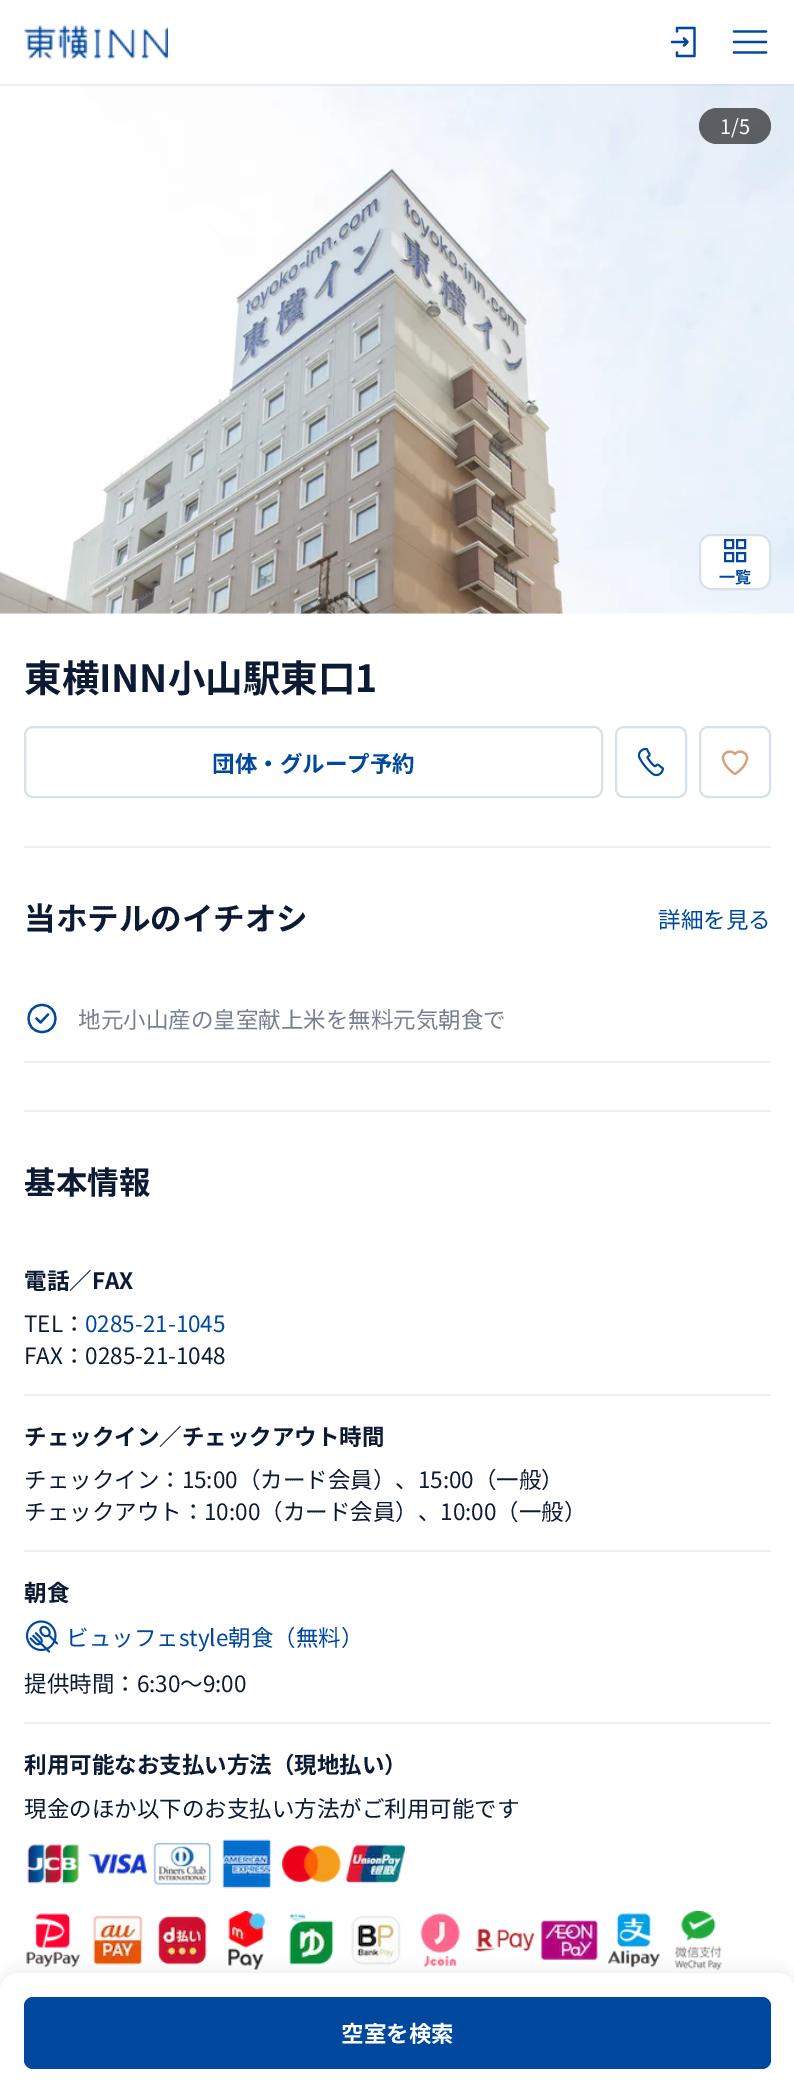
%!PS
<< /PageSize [794 2092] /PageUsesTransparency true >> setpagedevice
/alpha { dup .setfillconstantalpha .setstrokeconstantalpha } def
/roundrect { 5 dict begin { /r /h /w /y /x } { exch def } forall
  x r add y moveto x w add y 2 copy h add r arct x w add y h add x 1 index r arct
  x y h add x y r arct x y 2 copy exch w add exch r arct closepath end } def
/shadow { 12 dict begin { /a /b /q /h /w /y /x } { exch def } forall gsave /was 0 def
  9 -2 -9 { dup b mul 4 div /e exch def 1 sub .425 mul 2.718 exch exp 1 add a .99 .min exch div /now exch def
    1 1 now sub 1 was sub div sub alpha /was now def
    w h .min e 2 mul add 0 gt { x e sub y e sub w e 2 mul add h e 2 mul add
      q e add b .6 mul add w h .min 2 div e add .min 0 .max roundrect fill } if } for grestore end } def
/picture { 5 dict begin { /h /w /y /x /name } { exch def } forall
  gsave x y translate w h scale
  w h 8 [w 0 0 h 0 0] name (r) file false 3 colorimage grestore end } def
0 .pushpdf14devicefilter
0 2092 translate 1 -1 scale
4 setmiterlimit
1 setgray
0 0 794 2092 rectfill
(img1.rgb) 24 25 144 34 picture
0 0.282 0.616 setrgbcolor
2.2 setlinewidth
1 setlinecap
1 setlinejoin
newpath 677 31.5 moveto 677 28 lineto 694.5 28 lineto 694.5 56 lineto 677 56 lineto 677 52.5 lineto 684 38.5 moveto 687.5 42 lineto 687.5 42 moveto 684 45.5 lineto 687.5 42 moveto 672 42 lineto stroke
newpath 734 31.5 moveto 766 31.5 lineto 734 42 moveto 766 42 lineto 734 52.5 moveto 766 52.5 lineto stroke
(img2.rgb) 0 84 794 530 picture
0.3 alpha
0.737 0.804 0.867 setrgbcolor
0 84 794 2 rectfill
0.6 alpha
0 setgray
699 108 72 36 18 roundrect fill
/NotoSansJP-Regular [20 0 0 -20 0 0] selectfont
1 alpha
1 setgray
720 134 moveto (1/5) show
699 534 72 56 12 roundrect fill
0.6 alpha
0.737 0.804 0.867 setrgbcolor
2 setlinewidth
0 setlinecap
0 setlinejoin
700 535 70 54 11 roundrect stroke
1 alpha
0 0.282 0.616 setrgbcolor
725 540 8 8 rectstroke
737 553 8 8 rectstroke
725 553 8 8 rectstroke
737 540 8 8 rectstroke
/NotoSansJP-Bold [16 0 0 -16 0 0] selectfont
719 583 moveto (一覧) show
/NotoSansJP-Bold [37.5 0 0 -37.5 0 0] selectfont
0.051 0.102 0.2 setrgbcolor
24 692 moveto (東横INN小山駅東口1) show
0.843 0.882 0.922 setrgbcolor
25 727 577 70 8 roundrect stroke
/NotoSansJP-Bold [22.5 0 0 -22.5 0 0] selectfont
0 0.282 0.616 setrgbcolor
212 772 moveto (団体・グループ予約) show
0.843 0.882 0.922 setrgbcolor
616 727 70 70 8 roundrect stroke
(img3.rgb) 637 747 27 30 picture
700 727 70 70 8 roundrect stroke
0.847 0.635 0.494 setrgbcolor
2.2 setlinewidth
1 setlinejoin
newpath 735 774 moveto 729.5 770.5 723.5 765 723 758 curveto 722.5 752 731 749 735 754 curveto 739 749 747.5 752 747 758 curveto 746.5 765 740.5 770.5 735 774 curveto closepath stroke
0.922 0.941 0.961 setrgbcolor
24 846 747 2 rectfill
/NotoSansJP-Bold [31.5 0 0 -31.5 0 0] selectfont
0.051 0.102 0.2 setrgbcolor
24 930 moveto (当ホテルのイチオシ) show
/NotoSansJP-Regular [22.5 0 0 -22.5 0 0] selectfont
0 0.282 0.616 setrgbcolor
658 928 moveto (詳細を見る) show
0.922 0.941 0.961 setrgbcolor
24 1061 747 2 rectfill
0 0.282 0.616 setrgbcolor
0 setlinejoin
newpath 42 1032 moveto 60 1032 60 1005 42 1005 curveto 24 1005 24 1032 42 1032 curveto closepath stroke
1 setlinecap
1 setlinejoin
newpath 48 1014.5 moveto 40.5 1022.5 lineto 36.5 1018.5 lineto stroke
0.471 0.498 0.569 setrgbcolor
78 1028 moveto (地元小山産の皇室献上米を無料元気朝食で) show
0.922 0.941 0.961 setrgbcolor
24 1110 747 2 rectfill
/NotoSansJP-Bold [31.5 0 0 -31.5 0 0] selectfont
0.051 0.102 0.2 setrgbcolor
24 1194 moveto (基本情報) show
0.922 0.941 0.961 setrgbcolor
24 1394 747 2 rectfill
/NotoSansJP-Bold [22.5 0 0 -22.5 0 0] selectfont
0.051 0.102 0.2 setrgbcolor
24 1289 moveto (電話／FAX) show
/NotoSansJP-Regular [22.5 0 0 -22.5 0 0] selectfont
24 1332 moveto (TEL：) show
0 0.282 0.616 setrgbcolor
85 1332 moveto (0285-21-1045) show
0.051 0.102 0.2 setrgbcolor
24 1364 moveto (FAX：0285-21-1048) show
0.922 0.941 0.961 setrgbcolor
24 1550 747 2 rectfill
/NotoSansJP-Bold [22.5 0 0 -22.5 0 0] selectfont
0.051 0.102 0.2 setrgbcolor
24 1445 moveto (チェックイン／チェックアウト時間) show
/NotoSansJP-Regular [22.5 0 0 -22.5 0 0] selectfont
24 1488 moveto (チェックイン：15:00（カード会員）、15:00（一般）) show
24 1520 moveto (チェックアウト：10:00（カード会員）、10:00（一般）) show
0.922 0.941 0.961 setrgbcolor
24 1722 747 2 rectfill
/NotoSansJP-Bold [22.5 0 0 -22.5 0 0] selectfont
0.051 0.102 0.2 setrgbcolor
24 1601 moveto (朝食) show
(img4.rgb) 25 1620 34 33 picture
/NotoSansJP-Regular [22.5 0 0 -22.5 0 0] selectfont
0 0.282 0.616 setrgbcolor
66 1646 moveto (ビュッフェstyle朝食（無料）) show
0.051 0.102 0.2 setrgbcolor
24 1692 moveto (提供時間：6:30〜9:00) show
/NotoSansJP-Bold [22.5 0 0 -22.5 0 0] selectfont
24 1773 moveto (利用可能なお支払い方法（現地払い）) show
/NotoSansJP-Regular [22.5 0 0 -22.5 0 0] selectfont
24 1817 moveto (現金のほか以下のお支払い方法がご利用可能です) show
(img5.rgb) 27 1844 52 40 picture
(img6.rgb) 88 1853 59 21 picture
(img7.rgb) 153 1842 59 43 picture
(img8.rgb) 222 1839 50 50 picture
(img9.rgb) 282 1845 59 38 picture
(img10.rgb) 346 1844 59 40 picture
(img11.rgb) 26 1913 55 55 picture
(img12.rgb) 93 1915 50 50 picture
(img13.rgb) 157 1915 50 50 picture
(img14.rgb) 228 1911 38 59 picture
(img15.rgb) 289 1913 45 52 picture
(img16.rgb) 351 1916 50 49 picture
(img17.rgb) 420 1913 40 55 picture
(img18.rgb) 475 1928 59 24 picture
(img19.rgb) 541 1920 57 40 picture
(img20.rgb) 608 1913 52 55 picture
(img21.rgb) 675 1911 47 59 picture
0.098 0.2 0.4 setrgbcolor
0 1970 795 120 18 6 0.08 shadow
1 setgray
newpath 18 1973 moveto 777 1973 lineto 787 1973 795 1981 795 1991 curveto 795 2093 lineto 0 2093 lineto 0 1991 lineto 0 1981 8 1973 18 1973 curveto closepath fill
0 0.282 0.616 setrgbcolor
24 1997 747 72 9 roundrect fill
/NotoSansJP-Bold [22.5 0 0 -22.5 0 0] selectfont
1 setgray
341 2042 moveto (空室を検索) show
.poppdf14devicefilter showpage
